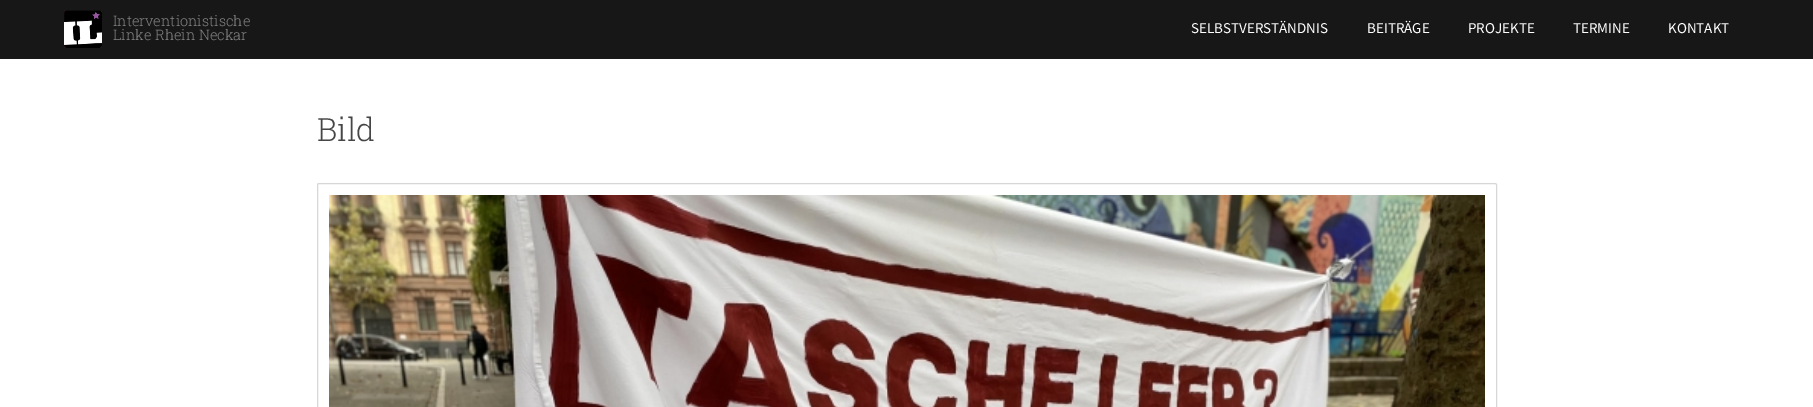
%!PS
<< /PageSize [1813 407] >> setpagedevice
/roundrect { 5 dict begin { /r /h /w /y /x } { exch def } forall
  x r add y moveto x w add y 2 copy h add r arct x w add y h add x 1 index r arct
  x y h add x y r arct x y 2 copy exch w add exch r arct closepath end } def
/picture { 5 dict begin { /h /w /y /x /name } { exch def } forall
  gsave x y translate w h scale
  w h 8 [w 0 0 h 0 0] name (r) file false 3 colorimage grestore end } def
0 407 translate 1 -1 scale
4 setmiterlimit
1 setgray
0 0 1813 407 rectfill
0.09 setgray
0 0 1813 59 rectfill
(img1.rgb) 64 10 38 38 picture
/RobotoSlab-Light [14.5 0 0 -14.5 0 0] selectfont
0.522 0.522 0.525 setrgbcolor
113 26 moveto (Interventionistische) show
113 40 moveto (Linke Rhein Neckar) show
/SourceSansPro-Regular [15 0 0 -15 0 0] selectfont
0.996 setgray
1191 33 moveto (SELBSTVERSTÄNDNIS) show
1367 33 moveto (BEITRÄGE) show
1468 33 moveto (PROJEKTE) show
1573 33 moveto (TERMINE) show
1668 33 moveto (KONTAKT) show
/RobotoSlab-Light [32 0 0 -32 0 0] selectfont
0.275 setgray
317 141 moveto (Bild) show
0.843 setgray
317.5 183.5 1179 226 1.5 roundrect stroke
(img2.rgb) 329 195 1156 212 picture
showpage
